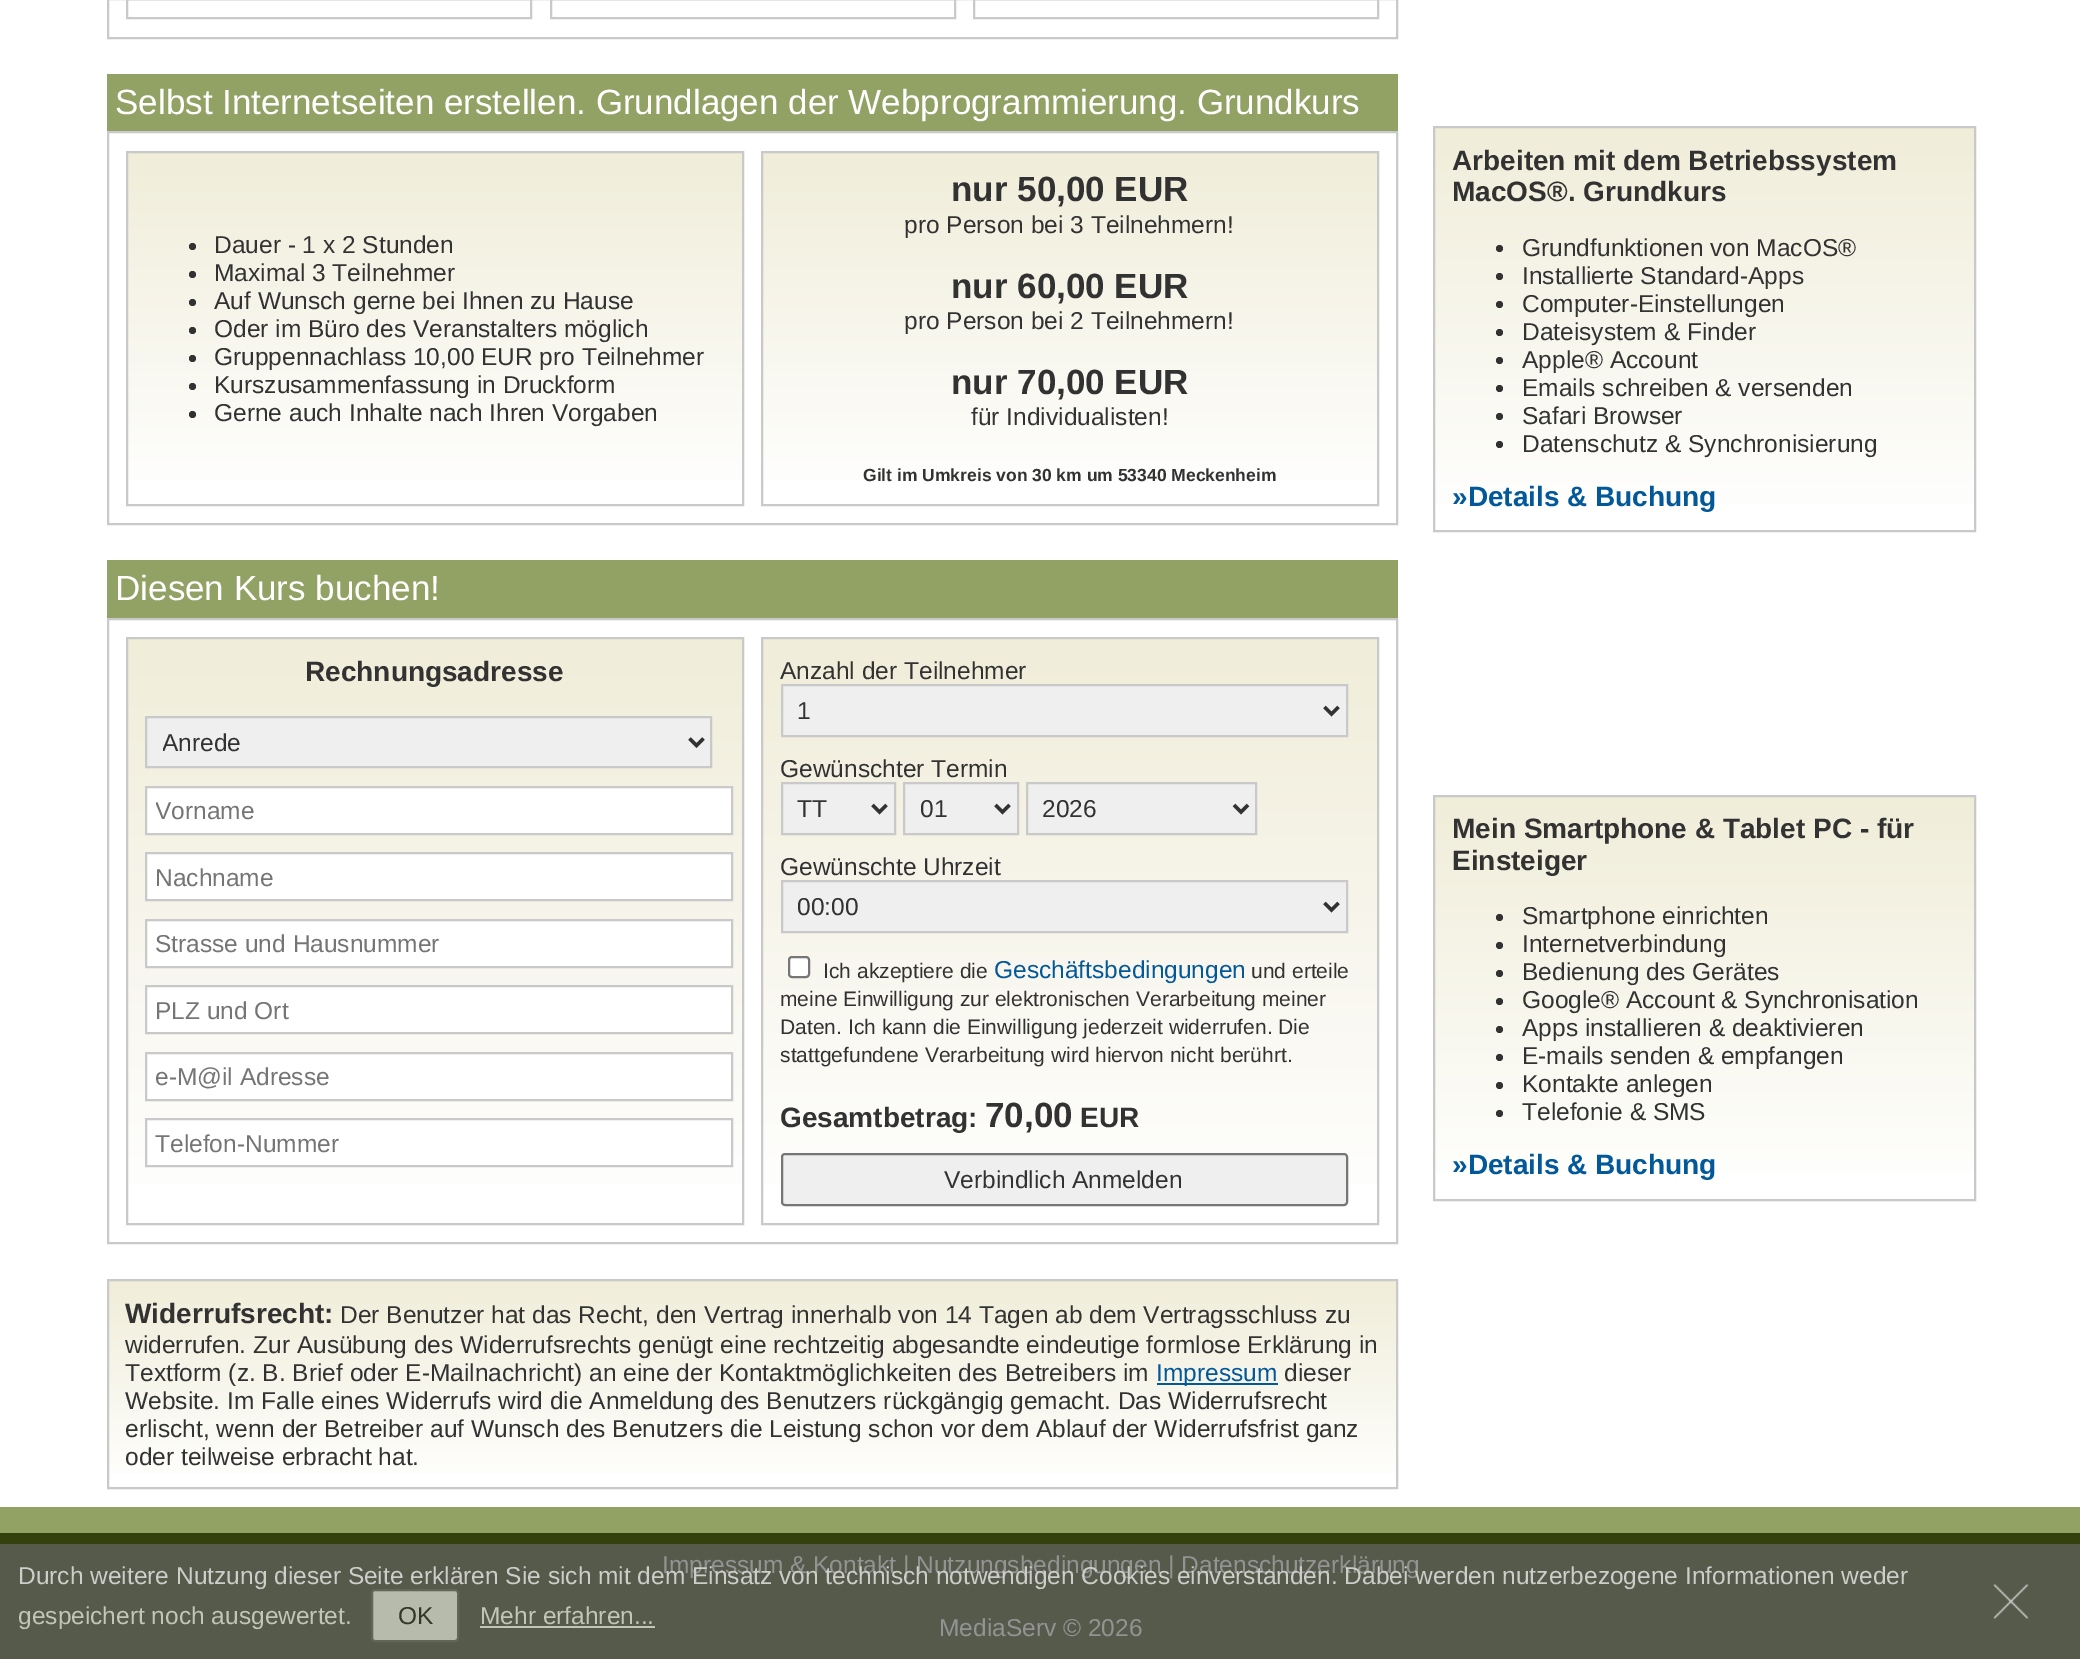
%!PS
<< /PageSize [2080 1659] >> setpagedevice
/roundrect { 5 dict begin { /r /h /w /y /x } { exch def } forall
  x r add y moveto x w add y 2 copy h add r arct x w add y h add x 1 index r arct
  x y h add x y r arct x y 2 copy exch w add exch r arct closepath end } def
/picture { 5 dict begin { /h /w /y /x /name } { exch def } forall
  gsave x y translate w h scale
  w h 8 [w 0 0 h 0 0] name (r) file false 3 colorimage grestore end } def
0 1659 translate 1 -1 scale
4 setmiterlimit
1 setgray
0 0 2080 1659 rectfill
0.788 setgray
2 setlinewidth
108 -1 1289 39 rectstroke
127 -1 404 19 rectstroke
551 -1 404 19 rectstroke
974 -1 404 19 rectstroke
0.573 0.635 0.392 setrgbcolor
107 74 1291 57 rectfill
/LiberationSans-Regular [35 0 0 -35 0 0] selectfont
1 setgray
115 114 moveto (Selbst Internetseiten erstellen. Grundlagen der Webprogrammierung. Grundkurs) show
0.788 setgray
108 132 1289 392 rectstroke
gsave newpath 128 153 moveto 742 153 lineto 742 481 lineto 128 481 lineto closepath clip newpath
<< /ShadingType 2 /ColorSpace /DeviceRGB /Coords [435 152 435 504] /Extend [true true] /Function << /FunctionType 2 /Domain [0 1] /C0 [0.941 0.929 0.851] /C1 [1 1 1] /N 1 >> >> shfill grestore
127 152 616 353 rectstroke
0.196 setgray
newpath 192.5 246.5 3.5 0 360 arc closepath fill
/LiberationSans-Regular [24.5 0 0 -24.5 0 0] selectfont
214 253 moveto (Dauer - 1 x 2 Stunden) show
newpath 192.5 274.5 3.5 0 360 arc closepath fill
214 281 moveto (Maximal 3 Teilnehmer) show
newpath 192.5 302.5 3.5 0 360 arc closepath fill
214 309 moveto (Auf Wunsch gerne bei Ihnen zu Hause) show
newpath 192.5 330.5 3.5 0 360 arc closepath fill
214 337 moveto (Oder im Büro des Veranstalters möglich) show
newpath 192.5 358.5 3.5 0 360 arc closepath fill
214 365 moveto (Gruppennachlass 10,00 EUR pro Teilnehmer) show
newpath 192.5 386.5 3.5 0 360 arc closepath fill
214 393 moveto (Kurszusammenfassung in Druckform) show
newpath 192.5 414.5 3.5 0 360 arc closepath fill
214 421 moveto (Gerne auch Inhalte nach Ihren Vorgaben) show
gsave newpath 763 153 moveto 1377 153 lineto 1377 481 lineto 763 481 lineto closepath clip newpath
<< /ShadingType 2 /ColorSpace /DeviceRGB /Coords [1070 152 1070 504] /Extend [true true] /Function << /FunctionType 2 /Domain [0 1] /C0 [0.941 0.929 0.851] /C1 [1 1 1] /N 1 >> >> shfill grestore
0.788 setgray
762 152 616 353 rectstroke
/LiberationSans-Bold [35 0 0 -35 0 0] selectfont
0.196 setgray
951 201 moveto (nur 50,00 EUR) show
/LiberationSans-Regular [24.5 0 0 -24.5 0 0] selectfont
904 233 moveto (pro Person bei 3 Teilnehmern!) show
/LiberationSans-Bold [35 0 0 -35 0 0] selectfont
951 298 moveto (nur 60,00 EUR) show
/LiberationSans-Regular [24.5 0 0 -24.5 0 0] selectfont
904 329 moveto (pro Person bei 2 Teilnehmern!) show
/LiberationSans-Bold [35 0 0 -35 0 0] selectfont
951 394 moveto (nur 70,00 EUR) show
/LiberationSans-Regular [24.5 0 0 -24.5 0 0] selectfont
971 425 moveto (für Individualisten!) show
/LiberationSans-Bold [17.5 0 0 -17.5 0 0] selectfont
863 481 moveto (Gilt im Umkreis von 30 km um 53340 Meckenheim) show
0.573 0.635 0.392 setrgbcolor
107 560 1291 58 rectfill
/LiberationSans-Regular [35 0 0 -35 0 0] selectfont
1 setgray
115 600 moveto (Diesen Kurs buchen!) show
0.788 setgray
108 619 1289 624 rectstroke
gsave newpath 128 639 moveto 742 639 lineto 742 1185 lineto 128 1185 lineto closepath clip newpath
<< /ShadingType 2 /ColorSpace /DeviceRGB /Coords [435 639 435 1223] /Extend [true true] /Function << /FunctionType 2 /Domain [0 1] /C0 [0.941 0.929 0.851] /C1 [1 1 1] /N 1 >> >> shfill grestore
127 638 616 586 rectstroke
/LiberationSans-Bold [28 0 0 -28 0 0] selectfont
0.196 setgray
305 681 moveto (Rechnungsadresse) show
0.937 setgray
newpath 146 717 moveto 711 717 lineto 711 767 lineto 146 767 lineto closepath gsave fill grestore
0.788 setgray
stroke
0.196 setgray
3.5 setlinewidth
newpath 689.5 738.5 moveto 696.5 745.5 lineto 703.5 738.5 lineto stroke
gsave
163 726 511 32 rectclip
/LiberationSans-Regular [24.5 0 0 -24.5 0 0] selectfont
162 751 moveto (Anrede) show
grestore
1 setgray
newpath 146 787 moveto 732 787 lineto 732 834 lineto 146 834 lineto closepath gsave fill grestore
0.788 setgray
2 setlinewidth
stroke
gsave
156 796 567 28 rectclip
/LiberationSans-Regular [24.5 0 0 -24.5 0 0] selectfont
0.459 setgray
155 819 moveto (Vorname) show
grestore
1 setgray
newpath 146 853 moveto 732 853 lineto 732 900 lineto 146 900 lineto closepath gsave fill grestore
0.788 setgray
stroke
/LiberationSans-Regular [24.5 0 0 -24.5 0 0] selectfont
0.459 setgray
155 886 moveto (Nachname) show
1 setgray
newpath 146 920 moveto 732 920 lineto 732 967 lineto 146 967 lineto closepath gsave fill grestore
0.788 setgray
stroke
0.459 setgray
155 952 moveto (Strasse und Hausnummer) show
1 setgray
newpath 146 986 moveto 732 986 lineto 732 1033 lineto 146 1033 lineto closepath gsave fill grestore
0.788 setgray
stroke
0.459 setgray
155 1019 moveto (PLZ und Ort) show
1 setgray
newpath 146 1053 moveto 732 1053 lineto 732 1100 lineto 146 1100 lineto closepath gsave fill grestore
0.788 setgray
stroke
0.459 setgray
155 1085 moveto (e-M@il Adresse) show
1 setgray
newpath 146 1119 moveto 732 1119 lineto 732 1166 lineto 146 1166 lineto closepath gsave fill grestore
0.788 setgray
stroke
0.459 setgray
155 1152 moveto (Telefon-Nummer) show
gsave newpath 763 639 moveto 1377 639 lineto 1377 1185 lineto 763 1185 lineto closepath clip newpath
<< /ShadingType 2 /ColorSpace /DeviceRGB /Coords [1070 639 1070 1223] /Extend [true true] /Function << /FunctionType 2 /Domain [0 1] /C0 [0.941 0.929 0.851] /C1 [1 1 1] /N 1 >> >> shfill grestore
0.788 setgray
762 638 616 586 rectstroke
0.196 setgray
780 679 moveto (Anzahl der Teilnehmer) show
0.937 setgray
newpath 782 685 moveto 1347 685 lineto 1347 736 lineto 782 736 lineto closepath gsave fill grestore
0.788 setgray
stroke
0.196 setgray
3.5 setlinewidth
newpath 1324.5 707 moveto 1331.5 714 lineto 1338.5 707 lineto stroke
797 719 moveto (1) show
780 777 moveto (Gewünschter Termin) show
0.937 setgray
newpath 782 783 moveto 895 783 lineto 895 834 lineto 782 834 lineto closepath gsave fill grestore
0.788 setgray
2 setlinewidth
stroke
0.196 setgray
3.5 setlinewidth
newpath 872.5 805 moveto 879.5 812 lineto 886.5 805 lineto stroke
797 817 moveto (TT) show
0.937 setgray
newpath 904 783 moveto 1018 783 lineto 1018 834 lineto 904 834 lineto closepath gsave fill grestore
0.788 setgray
2 setlinewidth
stroke
0.196 setgray
3.5 setlinewidth
newpath 995.5 805 moveto 1002.5 812 lineto 1009.5 805 lineto stroke
gsave
921 793 59 31 rectclip
920 817 moveto (01) show
grestore
0.937 setgray
newpath 1027 783 moveto 1256 783 lineto 1256 834 lineto 1027 834 lineto closepath gsave fill grestore
0.788 setgray
2 setlinewidth
stroke
0.196 setgray
3.5 setlinewidth
newpath 1234 805 moveto 1241 812 lineto 1248 805 lineto stroke
1042 817 moveto (2026) show
780 875 moveto (Gewünschte Uhrzeit) show
0.937 setgray
newpath 782 881 moveto 1347 881 lineto 1347 932 lineto 782 932 lineto closepath gsave fill grestore
0.788 setgray
2 setlinewidth
stroke
0.196 setgray
3.5 setlinewidth
newpath 1324.5 903 moveto 1331.5 910 lineto 1338.5 903 lineto stroke
797 915 moveto (00:00) show
1 setgray
789 957 20 20 3 roundrect gsave fill grestore
0.463 setgray
2 setlinewidth
stroke
/LiberationSans-Regular [21 0 0 -21 0 0] selectfont
0.196 setgray
823 978 moveto (Ich akzeptiere die) show
/LiberationSans-Regular [24.5 0 0 -24.5 0 0] selectfont
0.008 0.345 0.6 setrgbcolor
994 978 moveto (Geschäftsbedingungen) show
/LiberationSans-Regular [21 0 0 -21 0 0] selectfont
0.196 setgray
1251 978 moveto (und erteile) show
780 1006 moveto (meine Einwilligung zur elektronischen Verarbeitung meiner) show
780 1034 moveto (Daten. Ich kann die Einwilligung jederzeit widerrufen. Die) show
780 1062 moveto (stattgefundene Verarbeitung wird hiervon nicht berührt.) show
/LiberationSans-Bold [28 0 0 -28 0 0] selectfont
780 1127 moveto (Gesamtbetrag:) show
/LiberationSans-Bold [35 0 0 -35 0 0] selectfont
985 1127 moveto (70,00) show
/LiberationSans-Bold [28 0 0 -28 0 0] selectfont
1080 1127 moveto (EUR) show
0.937 setgray
782 1154 565 51 3 roundrect gsave fill grestore
0.463 setgray
stroke
/LiberationSans-Regular [24.5 0 0 -24.5 0 0] selectfont
0.196 setgray
944 1188 moveto (Verbindlich Anmelden) show
gsave newpath 109 1281 moveto 1396 1281 lineto 1396 1474 lineto 109 1474 lineto closepath clip newpath
<< /ShadingType 2 /ColorSpace /DeviceRGB /Coords [753 1281 753 1488] /Extend [true true] /Function << /FunctionType 2 /Domain [0 1] /C0 [0.941 0.929 0.851] /C1 [1 1 1] /N 1 >> >> shfill grestore
0.788 setgray
108 1280 1289 208 rectstroke
/LiberationSans-Bold [28 0 0 -28 0 0] selectfont
0.196 setgray
125 1323 moveto (Widerrufsrecht:) show
/LiberationSans-Regular [24.5 0 0 -24.5 0 0] selectfont
340 1323 moveto (Der Benutzer hat das Recht, den Vertrag innerhalb von 14 Tagen ab dem Vertragsschluss zu) show
125 1353 moveto (widerrufen. Zur Ausübung des Widerrufsrechts genügt eine rechtzeitig abgesandte eindeutige formlose Erklärung in) show
125 1381 moveto (Textform \(z. B. Brief oder E-Mailnachricht\) an eine der Kontaktmöglichkeiten des Betreibers im) show
0.008 0.345 0.6 setrgbcolor
1157 1383 121 2 rectfill
1156 1381 moveto (Impressum) show
0.196 setgray
1284 1381 moveto (dieser) show
125 1409 moveto (Website. Im Falle eines Widerrufs wird die Anmeldung des Benutzers rückgängig gemacht. Das Widerrufsrecht) show
125 1437 moveto (erlischt, wenn der Betreiber auf Wunsch des Benutzers die Leistung schon vor dem Ablauf der Widerrufsfrist ganz) show
125 1465 moveto (oder teilweise erbracht hat.) show
gsave newpath 1435 128 moveto 1974 128 lineto 1974 504 lineto 1435 504 lineto closepath clip newpath
<< /ShadingType 2 /ColorSpace /DeviceRGB /Coords [1705 128 1705 530] /Extend [true true] /Function << /FunctionType 2 /Domain [0 1] /C0 [0.941 0.929 0.851] /C1 [1 1 1] /N 1 >> >> shfill grestore
0.788 setgray
1434 127 541 404 rectstroke
/LiberationSans-Bold [28 0 0 -28 0 0] selectfont
0.196 setgray
1452 170 moveto (Arbeiten mit dem Betriebssystem) show
1452 201 moveto (MacOS®. Grundkurs) show
newpath 1499.5 248.5 3.5 0 360 arc closepath fill
/LiberationSans-Regular [24.5 0 0 -24.5 0 0] selectfont
1522 256 moveto (Grundfunktionen von MacOS®) show
newpath 1499.5 276.5 3.5 0 360 arc closepath fill
1522 284 moveto (Installierte Standard-Apps) show
newpath 1499.5 304.5 3.5 0 360 arc closepath fill
1522 312 moveto (Computer-Einstellungen) show
newpath 1499.5 332.5 3.5 0 360 arc closepath fill
1522 340 moveto (Dateisystem & Finder) show
newpath 1499.5 360.5 3.5 0 360 arc closepath fill
1522 368 moveto (Apple® Account) show
newpath 1499.5 388.5 3.5 0 360 arc closepath fill
1522 396 moveto (Emails schreiben & versenden) show
newpath 1499.5 416.5 3.5 0 360 arc closepath fill
1522 424 moveto (Safari Browser) show
newpath 1499.5 444.5 3.5 0 360 arc closepath fill
1522 452 moveto (Datenschutz & Synchronisierung) show
/LiberationSans-Bold [28 0 0 -28 0 0] selectfont
0.008 0.345 0.6 setrgbcolor
1452 506 moveto (»Details & Buchung) show
gsave newpath 1435 797 moveto 1974 797 lineto 1974 1172 lineto 1435 1172 lineto closepath clip newpath
<< /ShadingType 2 /ColorSpace /DeviceRGB /Coords [1705 796 1705 1199] /Extend [true true] /Function << /FunctionType 2 /Domain [0 1] /C0 [0.941 0.929 0.851] /C1 [1 1 1] /N 1 >> >> shfill grestore
0.788 setgray
1434 796 541 404 rectstroke
0.196 setgray
1452 838 moveto (Mein Smartphone & Tablet PC - für) show
1452 870 moveto (Einsteiger) show
newpath 1499.5 917.5 3.5 0 360 arc closepath fill
/LiberationSans-Regular [24.5 0 0 -24.5 0 0] selectfont
1522 924 moveto (Smartphone einrichten) show
newpath 1499.5 945.5 3.5 0 360 arc closepath fill
1522 952 moveto (Internetverbindung) show
newpath 1499.5 973.5 3.5 0 360 arc closepath fill
1522 980 moveto (Bedienung des Gerätes) show
newpath 1499.5 1001.5 3.5 0 360 arc closepath fill
1522 1008 moveto (Google® Account & Synchronisation) show
newpath 1499.5 1029.5 3.5 0 360 arc closepath fill
1522 1036 moveto (Apps installieren & deaktivieren) show
newpath 1499.5 1057.5 3.5 0 360 arc closepath fill
1522 1064 moveto (E-mails senden & empfangen) show
newpath 1499.5 1085.5 3.5 0 360 arc closepath fill
1522 1092 moveto (Kontakte anlegen) show
newpath 1499.5 1113.5 3.5 0 360 arc closepath fill
1522 1120 moveto (Telefonie & SMS) show
/LiberationSans-Bold [28 0 0 -28 0 0] selectfont
0.008 0.345 0.6 setrgbcolor
1452 1174 moveto (»Details & Buchung) show
0.573 0.635 0.392 setrgbcolor
0 1507 2080 26 rectfill
0.204 0.255 0.059 setrgbcolor
0 1533 2080 11 rectfill
0.337 0.353 0.294 setrgbcolor
0 1544 2080 115 rectfill
/LiberationSans-Regular [24.5 0 0 -24.5 0 0] selectfont
0.576 setgray
662 1573 moveto (Impressum & Kontakt | Nutzungsbedingungen | Datenschutzerklärung) show
939 1636 moveto (MediaServ © 2026) show
0.804 0.808 0.792 setrgbcolor
18 1584 moveto (Durch weitere Nutzung dieser Seite erklären Sie sich mit dem Einsatz von technisch notwendigen Cookies einverstanden. Dabei werden nutzerbezogene Informationen weder) show
0.761 0.776 0.718 setrgbcolor
18 1624 moveto (gespeichert noch ausgewertet.) show
0.718 0.733 0.675 setrgbcolor
372 1590 86 51 3 roundrect gsave fill grestore
0.384 0.4 0.341 setrgbcolor
stroke
0.2 0.216 0.157 setrgbcolor
398 1624 moveto (OK) show
0.761 0.776 0.718 setrgbcolor
480 1624 moveto (Mehr erfahren...) show
480 1626 175 2 rectfill
(img1.rgb) 1993 1583 36 36 picture
showpage
